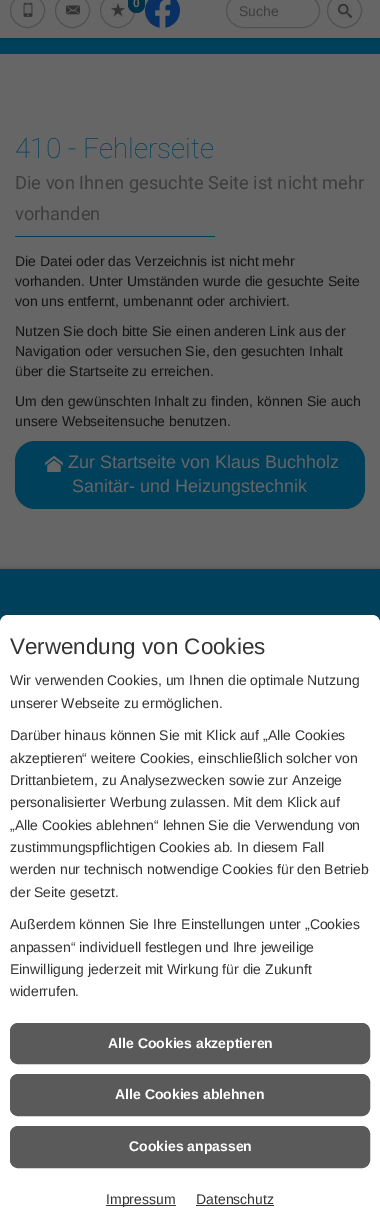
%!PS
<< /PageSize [380 1230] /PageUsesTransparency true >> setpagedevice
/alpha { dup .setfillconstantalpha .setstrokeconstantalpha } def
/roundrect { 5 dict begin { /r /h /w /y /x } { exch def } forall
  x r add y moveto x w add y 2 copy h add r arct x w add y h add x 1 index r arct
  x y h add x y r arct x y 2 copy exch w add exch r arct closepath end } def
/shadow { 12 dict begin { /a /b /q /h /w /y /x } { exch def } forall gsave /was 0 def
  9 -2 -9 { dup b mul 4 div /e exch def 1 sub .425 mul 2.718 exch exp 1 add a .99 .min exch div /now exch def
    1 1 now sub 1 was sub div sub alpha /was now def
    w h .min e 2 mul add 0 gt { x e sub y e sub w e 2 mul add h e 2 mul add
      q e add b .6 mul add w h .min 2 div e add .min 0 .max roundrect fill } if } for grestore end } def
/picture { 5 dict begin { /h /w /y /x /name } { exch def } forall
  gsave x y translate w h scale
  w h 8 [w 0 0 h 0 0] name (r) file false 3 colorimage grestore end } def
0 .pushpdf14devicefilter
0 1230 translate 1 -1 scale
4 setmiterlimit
0 0.251 0.357 setrgbcolor
0 0 380 1230 rectfill
0 setgray
0 -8 380 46 0 2.5 0.2 shadow
0.4 setgray
0 0 380 38 rectfill
0.314 setgray
newpath 27.5 10.5 17 0 360 arc closepath stroke
(img1.rgb) 23 2 10 15 picture
newpath 72.5 10.5 17 0 360 arc closepath stroke
(img2.rgb) 66 5 14 10 picture
newpath 117.5 10.5 17 0 360 arc closepath stroke
(img3.rgb) 111 3 14 14 picture
0 0.192 0.275 setrgbcolor
128 -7 17 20 8.5 roundrect fill
/LiberationSans-Bold [12 0 0 -12 0 0] selectfont
0.4 setgray
133 7 moveto (0) show
(img4.rgb) 145 0 35 28 picture
0.369 setgray
newpath 244 -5 moveto 302 -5 lineto 312 -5 319 2 319 11 curveto 319 3 314 -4 306 -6 curveto 240 -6 lineto 232 -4 227 3 227 11 curveto 227 2 234 -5 244 -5 curveto closepath fill
0.5 alpha
0.235 setgray
226.5 -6.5 93 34 17 roundrect stroke
/LiberationSans-Regular [14 0 0 -14 0 0] selectfont
1 alpha
0.239 setgray
239 16 moveto (Suche) show
0.314 setgray
newpath 344.5 10.5 17 0 360 arc closepath stroke
(img5.rgb) 338 3 14 15 picture
0.4 setgray
0 54 380 515 rectfill
/Roboto-Thin [28 0 0 -28 0 0] selectfont
0 0.251 0.357 setrgbcolor
15 158 moveto (410 - Fehlerseite) show
/Roboto-Regular [18.25 0 0 -18.25 0 0] selectfont
0.239 setgray
15 189 moveto (Die von Ihnen gesuchte Seite ist nicht mehr) show
15 220 moveto (vorhanden) show
0 0.251 0.357 setrgbcolor
15 236 200 1 rectfill
/LiberationSans-Regular [14 0 0 -14 0 0] selectfont
0.078 setgray
15 266 moveto (Die Datei oder das Verzeichnis ist nicht mehr) show
15 286 moveto (vorhanden. Unter Umständen wurde die gesuchte Seite) show
15 306 moveto (von uns entfernt, umbenannt oder archiviert.) show
15 336 moveto (Nutzen Sie doch bitte Sie einen anderen Link aus der) show
15 356 moveto (Navigation oder versuchen Sie, den gesuchten Inhalt) show
15 376 moveto (über die Startseite zu erreichen.) show
15 406 moveto (Um den gewünschten Inhalt zu finden, können Sie auch) show
15 426 moveto (unsere Webseitensuche benutzen.) show
0 0.251 0.357 setrgbcolor
15 441 350 68 20 roundrect fill
(img6.rgb) 45 455 18 17 picture
/LiberationSans-Regular [18 0 0 -18 0 0] selectfont
0.4 setgray
68 468 moveto (Zur Startseite von Klaus Buchholz) show
72 492 moveto (Sanitär- und Heizungstechnik) show
0 setgray
0 569 380 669 0 2.5 0.2 shadow
0 0.251 0.357 setrgbcolor
0 569 380 54 rectfill
1 setgray
newpath 8 615 moveto 372 615 lineto 376.5 615 380 618.5 380 623 curveto 380 1230 lineto 0 1230 lineto 0 623 lineto 0 618.5 3.5 615 8 615 curveto closepath fill
/LiberationSans-Regular [22.4 0 0 -22.4 0 0] selectfont
0.2 setgray
10 654 moveto (Verwendung von Cookies) show
/LiberationSans-Regular [14 0 0 -14 0 0] selectfont
10 685 moveto (Wir verwenden Cookies, um Ihnen die optimale Nutzung) show
10 708 moveto (unserer Webseite zu ermöglichen.) show
10 740 moveto (Darüber hinaus können Sie mit Klick auf „Alle Cookies) show
10 763 moveto (akzeptieren“ weitere Cookies, einschließlich solcher von) show
10 785 moveto (Drittanbietern, zu Analysezwecken sowie zur Anzeige) show
10 807 moveto (personalisierter Werbung zulassen. Mit dem Klick auf) show
10 830 moveto („Alle Cookies ablehnen“ lehnen Sie die Verwendung von) show
10 852 moveto (zustimmungspflichtigen Cookies ab. In diesem Fall) show
10 874 moveto (werden nur technisch notwendige Cookies für den Betrieb) show
10 897 moveto (der Seite gesetzt.) show
10 929 moveto (Außerdem können Sie Ihre Einstellungen unter „Cookies) show
10 952 moveto (anpassen“ individuell festlegen und Ihre jeweilige) show
10 974 moveto (Einwilligung jederzeit mit Wirkung für die Zukunft) show
10 996 moveto (widerrufen.) show
0.353 setgray
10.5 1023.5 359 40 7.5 roundrect gsave fill grestore
stroke
/LiberationSans-Bold [14 0 0 -14 0 0] selectfont
1 setgray
108 1048 moveto (Alle Cookies akzeptieren) show
0.353 setgray
10.5 1074.5 359 41 7.5 roundrect gsave fill grestore
stroke
1 setgray
115 1099 moveto (Alle Cookies ablehnen) show
0.353 setgray
10.5 1126.5 359 41 7.5 roundrect gsave fill grestore
stroke
1 setgray
129 1151 moveto (Cookies anpassen) show
0.2 setgray
106 1205 70 1 rectfill
/LiberationSans-Regular [14 0 0 -14 0 0] selectfont
106 1204 moveto (Impressum) show
196 1204 moveto (Datenschutz) show
196 1205 78 1 rectfill
.poppdf14devicefilter showpage
